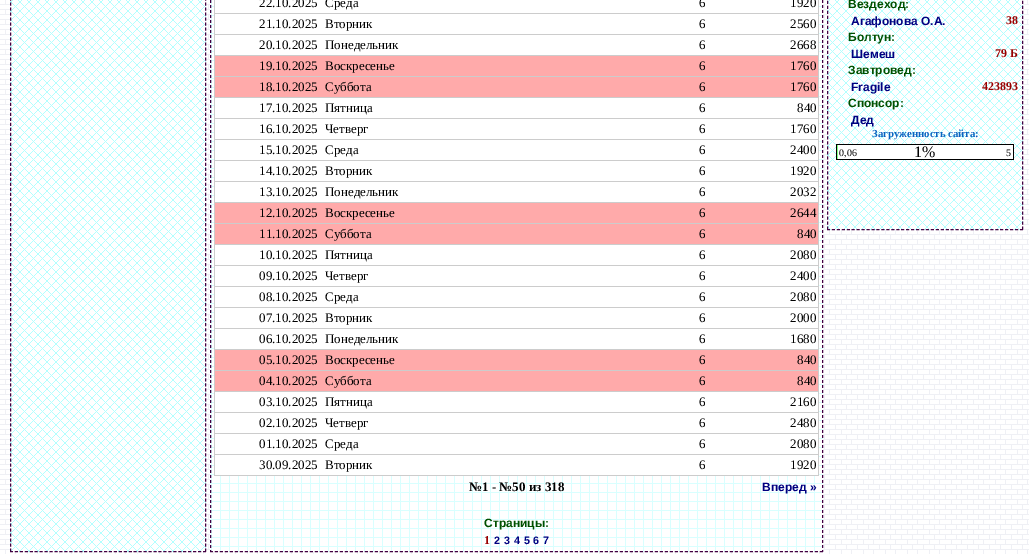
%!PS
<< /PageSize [1029 554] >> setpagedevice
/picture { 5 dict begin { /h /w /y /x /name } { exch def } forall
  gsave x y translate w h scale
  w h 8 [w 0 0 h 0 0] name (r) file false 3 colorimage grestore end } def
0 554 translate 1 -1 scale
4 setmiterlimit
1 setgray
0 0 1029 554 rectfill
(img1.rgb) 0 0 1029 554 picture
(img2.rgb) 10 0 196 552 picture
0.259 0 0.259 setrgbcolor
[3 2.01] 0 setdash
newpath 205.5 -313 moveto 205.5 552 lineto stroke
[3 1.95] 0 setdash
newpath 10 551.5 moveto 206 551.5 lineto stroke
[3 2.01] 0 setdash
newpath 10.5 -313 moveto 10.5 552 lineto stroke
(img3.rgb) 210 0 613 552 picture
[3 2] 0 setdash
newpath 822.5 -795 moveto 822.5 552 lineto stroke
newpath 210 551.5 moveto 823 551.5 lineto stroke
newpath 210.5 -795 moveto 210.5 552 lineto stroke
0.8 setgray
214 0 605 476 rectfill
1 setgray
215 0 603 13 rectfill
/LiberationSerif-Regular [13 0 0 -13 0 0] selectfont
0 setgray
259 7 moveto (22.10.2025) show
325 7 moveto (Среда) show
699 7 moveto (6) show
790 7 moveto (1920) show
1 setgray
215 14 603 20 rectfill
0 setgray
259 28 moveto (21.10.2025) show
325 28 moveto (Вторник) show
699 28 moveto (6) show
790 28 moveto (2560) show
1 setgray
215 35 603 20 rectfill
0 setgray
259 49 moveto (20.10.2025) show
325 49 moveto (Понедельник) show
699 49 moveto (6) show
790 49 moveto (2668) show
1 0.667 0.667 setrgbcolor
215 56 603 20 rectfill
0 setgray
259 70 moveto (19.10.2025) show
325 70 moveto (Воскресенье) show
699 70 moveto (6) show
790 70 moveto (1760) show
1 0.667 0.667 setrgbcolor
215 77 603 20 rectfill
0 setgray
259 91 moveto (18.10.2025) show
325 91 moveto (Суббота) show
699 91 moveto (6) show
790 91 moveto (1760) show
1 setgray
215 98 603 20 rectfill
0 setgray
259 112 moveto (17.10.2025) show
325 112 moveto (Пятница) show
699 112 moveto (6) show
797 112 moveto (840) show
1 setgray
215 119 603 20 rectfill
0 setgray
259 133 moveto (16.10.2025) show
325 133 moveto (Четверг) show
699 133 moveto (6) show
790 133 moveto (1760) show
1 setgray
215 140 603 20 rectfill
0 setgray
259 154 moveto (15.10.2025) show
325 154 moveto (Среда) show
699 154 moveto (6) show
790 154 moveto (2400) show
1 setgray
215 161 603 20 rectfill
0 setgray
259 175 moveto (14.10.2025) show
325 175 moveto (Вторник) show
699 175 moveto (6) show
790 175 moveto (1920) show
1 setgray
215 182 603 20 rectfill
0 setgray
259 196 moveto (13.10.2025) show
325 196 moveto (Понедельник) show
699 196 moveto (6) show
790 196 moveto (2032) show
1 0.667 0.667 setrgbcolor
215 203 603 20 rectfill
0 setgray
259 217 moveto (12.10.2025) show
325 217 moveto (Воскресенье) show
699 217 moveto (6) show
790 217 moveto (2644) show
1 0.667 0.667 setrgbcolor
215 224 603 20 rectfill
0 setgray
259 238 moveto (11.10.2025) show
325 238 moveto (Суббота) show
699 238 moveto (6) show
797 238 moveto (840) show
1 setgray
215 245 603 20 rectfill
0 setgray
259 259 moveto (10.10.2025) show
325 259 moveto (Пятница) show
699 259 moveto (6) show
790 259 moveto (2080) show
1 setgray
215 266 603 20 rectfill
0 setgray
259 280 moveto (09.10.2025) show
325 280 moveto (Четверг) show
699 280 moveto (6) show
790 280 moveto (2400) show
1 setgray
215 287 603 20 rectfill
0 setgray
259 301 moveto (08.10.2025) show
325 301 moveto (Среда) show
699 301 moveto (6) show
790 301 moveto (2080) show
1 setgray
215 308 603 20 rectfill
0 setgray
259 322 moveto (07.10.2025) show
325 322 moveto (Вторник) show
699 322 moveto (6) show
790 322 moveto (2000) show
1 setgray
215 329 603 20 rectfill
0 setgray
259 343 moveto (06.10.2025) show
325 343 moveto (Понедельник) show
699 343 moveto (6) show
790 343 moveto (1680) show
1 0.667 0.667 setrgbcolor
215 350 603 20 rectfill
0 setgray
259 364 moveto (05.10.2025) show
325 364 moveto (Воскресенье) show
699 364 moveto (6) show
797 364 moveto (840) show
1 0.667 0.667 setrgbcolor
215 371 603 20 rectfill
0 setgray
259 385 moveto (04.10.2025) show
325 385 moveto (Суббота) show
699 385 moveto (6) show
797 385 moveto (840) show
1 setgray
215 392 603 20 rectfill
0 setgray
259 406 moveto (03.10.2025) show
325 406 moveto (Пятница) show
699 406 moveto (6) show
790 406 moveto (2160) show
1 setgray
215 413 603 20 rectfill
0 setgray
259 427 moveto (02.10.2025) show
325 427 moveto (Четверг) show
699 427 moveto (6) show
790 427 moveto (2480) show
1 setgray
215 434 603 20 rectfill
0 setgray
259 448 moveto (01.10.2025) show
325 448 moveto (Среда) show
699 448 moveto (6) show
790 448 moveto (2080) show
1 setgray
215 455 603 20 rectfill
0 setgray
259 469 moveto (30.09.2025) show
325 469 moveto (Вторник) show
699 469 moveto (6) show
790 469 moveto (1920) show
/LiberationSerif-Bold [13 0 0 -13 0 0] selectfont
469 491 moveto (№1 - №50 из 318) show
/LiberationSans-Bold [12 0 0 -12 0 0] selectfont
0 0 0.502 setrgbcolor
762 491 moveto (Вперед ») show
0 0.314 0 setrgbcolor
484 527 moveto (Страницы:) show
/LiberationSerif-Bold [12 0 0 -12 0 0] selectfont
0.6 0 0 setrgbcolor
484 544 moveto (1) show
/LiberationSans-Bold [10.75 0 0 -10.75 0 0] selectfont
0 0 0.502 setrgbcolor
494 544 moveto (2) show
504 544 moveto (3) show
514 544 moveto (4) show
524 544 moveto (5) show
533 544 moveto (6) show
543 544 moveto (7) show
(img4.rgb) 827 0 196 230 picture
0.259 0 0.259 setrgbcolor
[3 2.02] 0 setdash
newpath 1022.5 -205 moveto 1022.5 230 lineto stroke
[3 1.95] 0 setdash
newpath 827 229.5 moveto 1023 229.5 lineto stroke
[3 2.02] 0 setdash
newpath 827.5 -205 moveto 827.5 230 lineto stroke
/LiberationSans-Bold [12 0 0 -12 0 0] selectfont
0 0.314 0 setrgbcolor
848 8 moveto (Вездеход:) show
0 0 0.502 setrgbcolor
851 25 moveto (Агафонова О.А.) show
/LiberationSerif-Bold [12 0 0 -12 0 0] selectfont
0.6 0 0 setrgbcolor
1006 24 moveto (38) show
/LiberationSans-Bold [12 0 0 -12 0 0] selectfont
0 0.314 0 setrgbcolor
848 41 moveto (Болтун:) show
0 0 0.502 setrgbcolor
851 58 moveto (Шемеш) show
/LiberationSerif-Bold [12 0 0 -12 0 0] selectfont
0.6 0 0 setrgbcolor
995 57 moveto (79 Б) show
/LiberationSans-Bold [12 0 0 -12 0 0] selectfont
0 0.314 0 setrgbcolor
848 74 moveto (Завтровед:) show
0 0 0.502 setrgbcolor
851 91 moveto (Fragile) show
/LiberationSerif-Bold [12 0 0 -12 0 0] selectfont
0.6 0 0 setrgbcolor
982 90 moveto (423893) show
/LiberationSans-Bold [12 0 0 -12 0 0] selectfont
0 0.314 0 setrgbcolor
848 107 moveto (Спонсор:) show
0 0 0.502 setrgbcolor
851 124 moveto (Дед) show
/LiberationSerif-Bold [10.75 0 0 -10.75 0 0] selectfont
0.035 0.388 0.753 setrgbcolor
872 137 moveto (Загруженность сайта:) show
0 setgray
836 144 178 16 rectfill
1 setgray
838 145 175 14 rectfill
0.502 1 0.502 setrgbcolor
837 145 1 14 rectfill
/LiberationSerif-Regular [10 0 0 -10 0 0] selectfont
0 setgray
839 156 moveto (0,06) show
/LiberationSerif-Regular [16 0 0 -16 0 0] selectfont
914 157 moveto (1%) show
/LiberationSerif-Regular [10 0 0 -10 0 0] selectfont
1006 156 moveto (5) show
showpage
